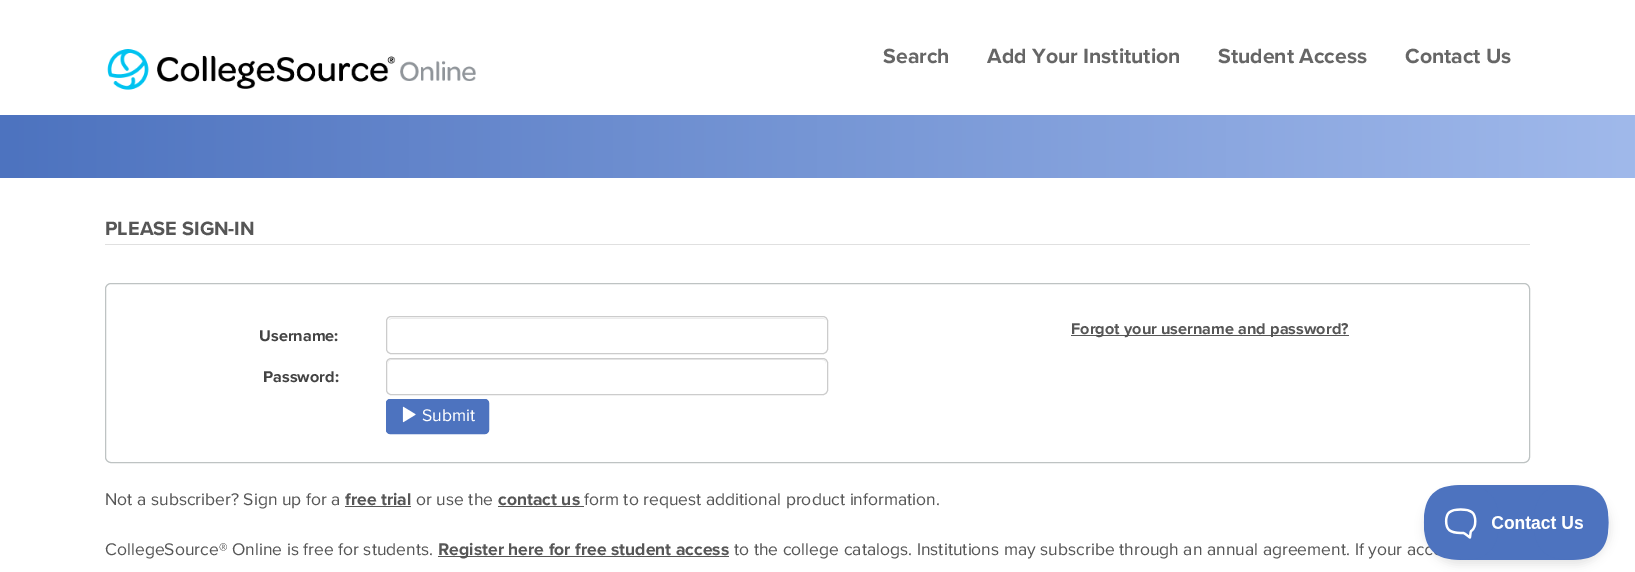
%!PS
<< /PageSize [1635 572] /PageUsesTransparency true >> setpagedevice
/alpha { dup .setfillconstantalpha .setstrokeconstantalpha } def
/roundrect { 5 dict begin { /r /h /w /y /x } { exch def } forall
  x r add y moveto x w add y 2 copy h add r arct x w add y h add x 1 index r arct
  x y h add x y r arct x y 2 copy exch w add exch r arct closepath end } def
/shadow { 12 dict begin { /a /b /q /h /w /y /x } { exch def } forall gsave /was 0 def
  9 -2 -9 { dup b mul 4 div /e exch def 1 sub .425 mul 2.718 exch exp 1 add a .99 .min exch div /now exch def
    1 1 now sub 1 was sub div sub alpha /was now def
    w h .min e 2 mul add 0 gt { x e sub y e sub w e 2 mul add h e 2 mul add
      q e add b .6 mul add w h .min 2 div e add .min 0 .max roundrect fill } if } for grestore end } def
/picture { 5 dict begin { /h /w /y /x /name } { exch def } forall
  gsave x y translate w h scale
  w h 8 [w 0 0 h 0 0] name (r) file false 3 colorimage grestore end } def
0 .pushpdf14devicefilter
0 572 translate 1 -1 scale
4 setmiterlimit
1 setgray
0 0 1635 572 rectfill
(img1.rgb) 107 49 369 41 picture
/ProximaNova-Bold [21.25 0 0 -21.25 0 0] selectfont
0.4 setgray
883 63 moveto (Search) show
987 63 moveto (Add Your Institution) show
1218 63 moveto (Student Access) show
1405 63 moveto (Contact Us) show
gsave newpath 0 115 moveto 1635 115 lineto 1635 178 lineto 0 178 lineto closepath clip newpath
<< /ShadingType 2 /ColorSpace /DeviceRGB /Coords [0 146 1635 146] /Extend [true true] /Function << /FunctionType 2 /Domain [0 1] /C0 [0.302 0.451 0.749] /C1 [0.627 0.725 0.922] /N 1 >> >> shfill grestore
/ProximaNova-Bold [20 0 0 -20 0 0] selectfont
0.337 setgray
105 235 moveto (PLEASE SIGN-IN) show
0.878 setgray
105 244 1425 1 rectfill
0.745 0.765 0.765 setrgbcolor
105.5 283.5 1424 179 5.5 roundrect stroke
/ProximaNova-Bold [16.25 0 0 -16.25 0 0] selectfont
0.263 setgray
259 341 moveto (Username:) show
0.925 setgray
newpath 391 319 moveto 824 319 lineto 826 320 lineto 825 319 824 318 822 318 curveto 392 318 lineto 391 318 389 319 389 320 curveto closepath fill
0.8 setgray
386.5 316.5 441 37 4.5 roundrect stroke
0.263 setgray
263 382 moveto (Password:) show
0.925 setgray
newpath 391 360 moveto 822 360 lineto 825 360 826 362 826 364 curveto 826 361 825 359 822 359 curveto 392 359 lineto 389 359 388 361 388 364 curveto 388 362 389 360 391 360 curveto closepath fill
0.8 setgray
386.5 358.5 441 36 4.5 roundrect stroke
0.302 0.451 0.749 setrgbcolor
386.5 399.5 102 34 3.5 roundrect gsave fill grestore
stroke
(img2.rgb) 402 406 14 17 picture
/ProximaNova-Regular [17.5 0 0 -17.5 0 0] selectfont
1 setgray
422 421 moveto (Submit) show
0.337 setgray
1071 335 278 1 rectfill
/ProximaNova-Bold [16.25 0 0 -16.25 0 0] selectfont
1071 334 moveto (Forgot your username and password?) show
/ProximaNova-Regular [17.5 0 0 -17.5 0 0] selectfont
105 505 moveto (Not a subscriber? Sign up for a) show
/ProximaNova-Bold [17.5 0 0 -17.5 0 0] selectfont
345 505 moveto (free trial) show
345 506 66 1 rectfill
/ProximaNova-Regular [17.5 0 0 -17.5 0 0] selectfont
416 505 moveto (or use the) show
/ProximaNova-Bold [17.5 0 0 -17.5 0 0] selectfont
498 505 moveto (contact us) show
498 506 86 1 rectfill
/ProximaNova-Regular [17.5 0 0 -17.5 0 0] selectfont
584 505 moveto (form to request additional product information.) show
105 555 moveto (CollegeSource® Online is free for students.) show
438 556 291 1 rectfill
/ProximaNova-Bold [17.5 0 0 -17.5 0 0] selectfont
438 555 moveto (Register here for free student access) show
/ProximaNova-Regular [17.5 0 0 -17.5 0 0] selectfont
734 555 moveto (to the college catalogs. Institutions may subscribe through an annual agreement. If your acc) show
0 setgray
1424 490 186 75 37.5 4.5 0.1 shadow
(img3.rgb) 1423 485 186 75 picture
.poppdf14devicefilter showpage
